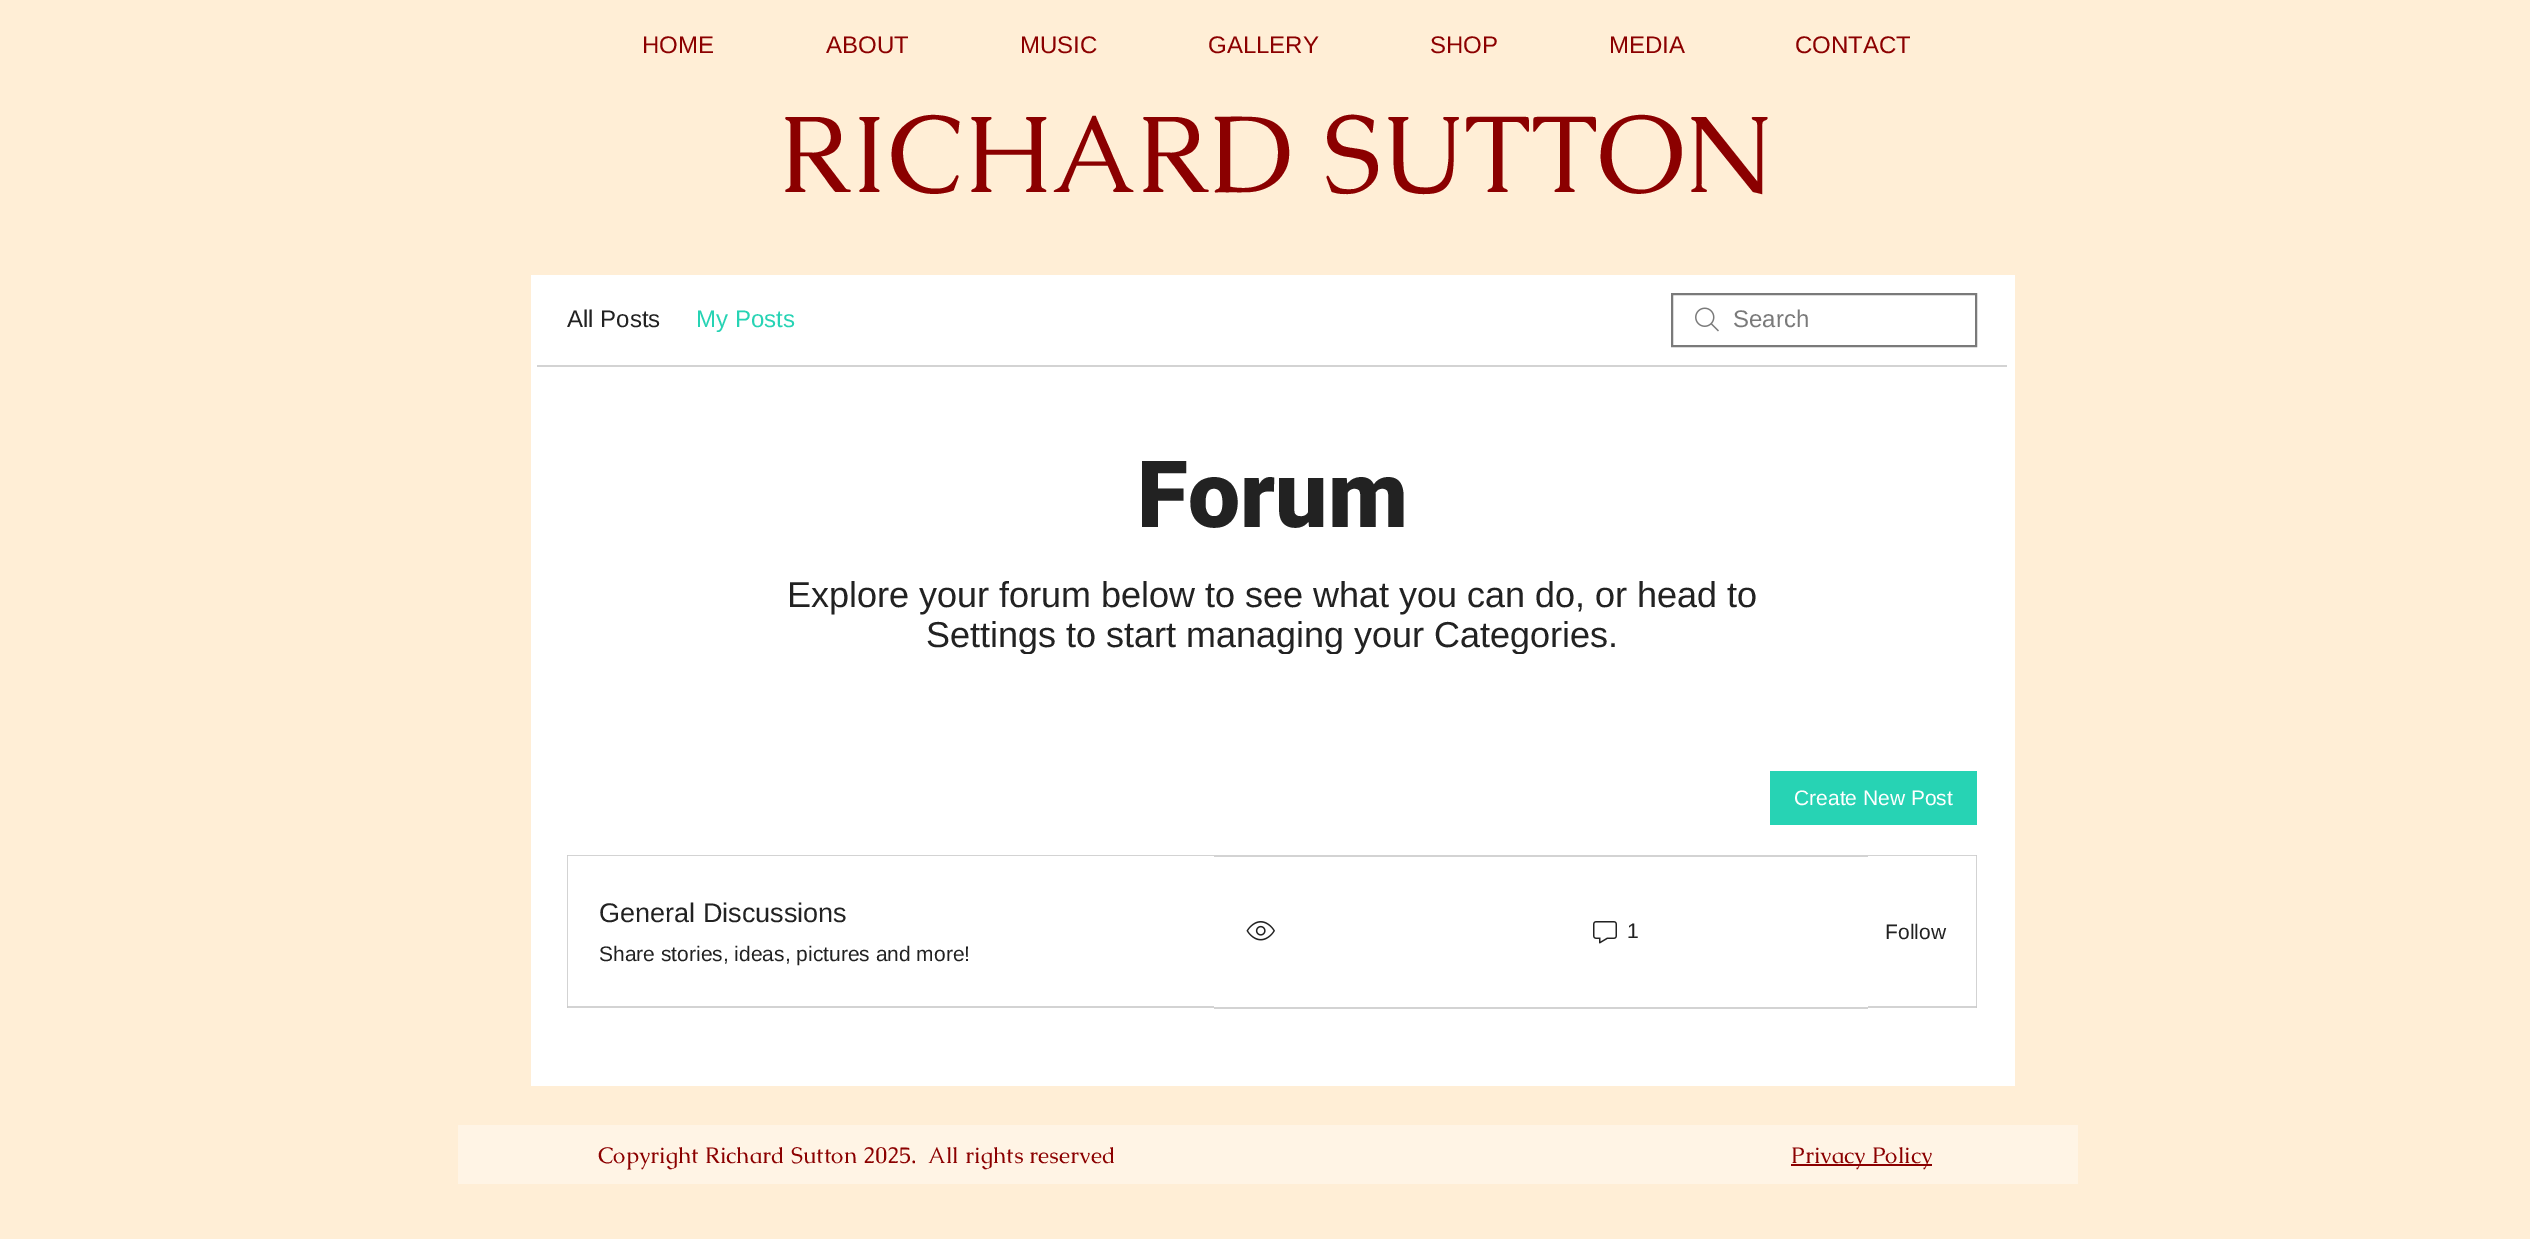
%!PS
<< /PageSize [2530 1239] /PageUsesTransparency true >> setpagedevice
/alpha { dup .setfillconstantalpha .setstrokeconstantalpha } def
/picture { 5 dict begin { /h /w /y /x /name } { exch def } forall
  gsave x y translate w h scale
  w h 8 [w 0 0 h 0 0] name (r) file false 3 colorimage grestore end } def
0 .pushpdf14devicefilter
0 1239 translate 1 -1 scale
4 setmiterlimit
1 0.933 0.839 setrgbcolor
0 0 2530 1239 rectfill
/LiberationSans-Regular [24 0 0 -24 0 0] selectfont
0.545 0 0 setrgbcolor
642 53 moveto (HOME) show
826 53 moveto (ABOUT) show
1020 53 moveto (MUSIC) show
1208 53 moveto (GALLERY) show
1430 53 moveto (SHOP) show
1609 53 moveto (MEDIA) show
1795 53 moveto (CONTACT) show
/Caudex-Regular [109.5 0 0 -109.5 0 0] selectfont
778 192 moveto (RICHARD SUTTON) show
1 setgray
531 275 1484 811 rectfill
0.827 setgray
537 365 1470 2 rectfill
/LiberationSans-Regular [24 0 0 -24 0 0] selectfont
0.133 setgray
567 327 moveto (All Posts) show
0.153 0.827 0.706 setrgbcolor
696 327 moveto (My Posts) show
(img1.rgb) 1695 307 24 25 picture
0.478 setgray
2 setlinewidth
1672 294 304 52 rectstroke
1733 327 moveto (Search) show
/Roboto-Black [93 0 0 -93 0 0] selectfont
0.133 setgray
1137 527 moveto (Forum) show
/LiberationSans-Regular [36 0 0 -36 0 0] selectfont
787 607 moveto (Explore your forum below to see what you can do, or head to) show
gsave
762 576 1020 78 rectclip
926 647 moveto (Settings to start managing your Categories.) show
grestore
0.153 0.827 0.706 setrgbcolor
1770 771 207 54 rectfill
/LiberationSans-Regular [21 0 0 -21 0 0] selectfont
1 setgray
1794 805 moveto (Create New Post) show
0.827 setgray
newpath 567 855 moveto 1214 855 lineto 1214 856 lineto 568 856 lineto closepath fill
newpath 1214 1008 moveto 567 1008 lineto 568 1006 lineto 1214 1006 lineto closepath fill
0.2 alpha
0.133 setgray
newpath 567 1008 moveto 567 855 lineto 568 856 lineto 568 1006 lineto closepath fill
/LiberationSans-Regular [27 0 0 -27 0 0] selectfont
1 alpha
599 922 moveto (General Discussions) show
/LiberationSans-Regular [21 0 0 -21 0 0] selectfont
599 961 moveto (Share stories, ideas, pictures and more!) show
0.827 setgray
1214 855 654 2 rectfill
1214 1007 654 2 rectfill
(img2.rgb) 1246 921 29 20 picture
(img3.rgb) 1593 921 24 23 picture
0.133 setgray
1627 938 moveto (1) show
0.827 setgray
newpath 1868 855 moveto 1977 855 lineto 1976 856 lineto 1868 856 lineto closepath fill
0.2 alpha
0.133 setgray
newpath 1977 855 moveto 1977 1008 lineto 1976 1006 lineto 1976 856 lineto closepath fill
newpath 1977 1008 moveto 1868 1008 lineto 1868 1006 lineto 1976 1006 lineto closepath fill
1 alpha
1885 939 moveto (Follow) show
1 0.957 0.898 setrgbcolor
458 1125 1620 59 rectfill
/Caudex-Regular [22.5 0 0 -22.5 0 0] selectfont
0.545 0 0 setrgbcolor
598 1163 moveto (Copyright Richard Sutton 2025.  All rights reserved) show
1791 1164 141 2 rectfill
1791 1163 moveto (Privacy Policy) show
.poppdf14devicefilter showpage
